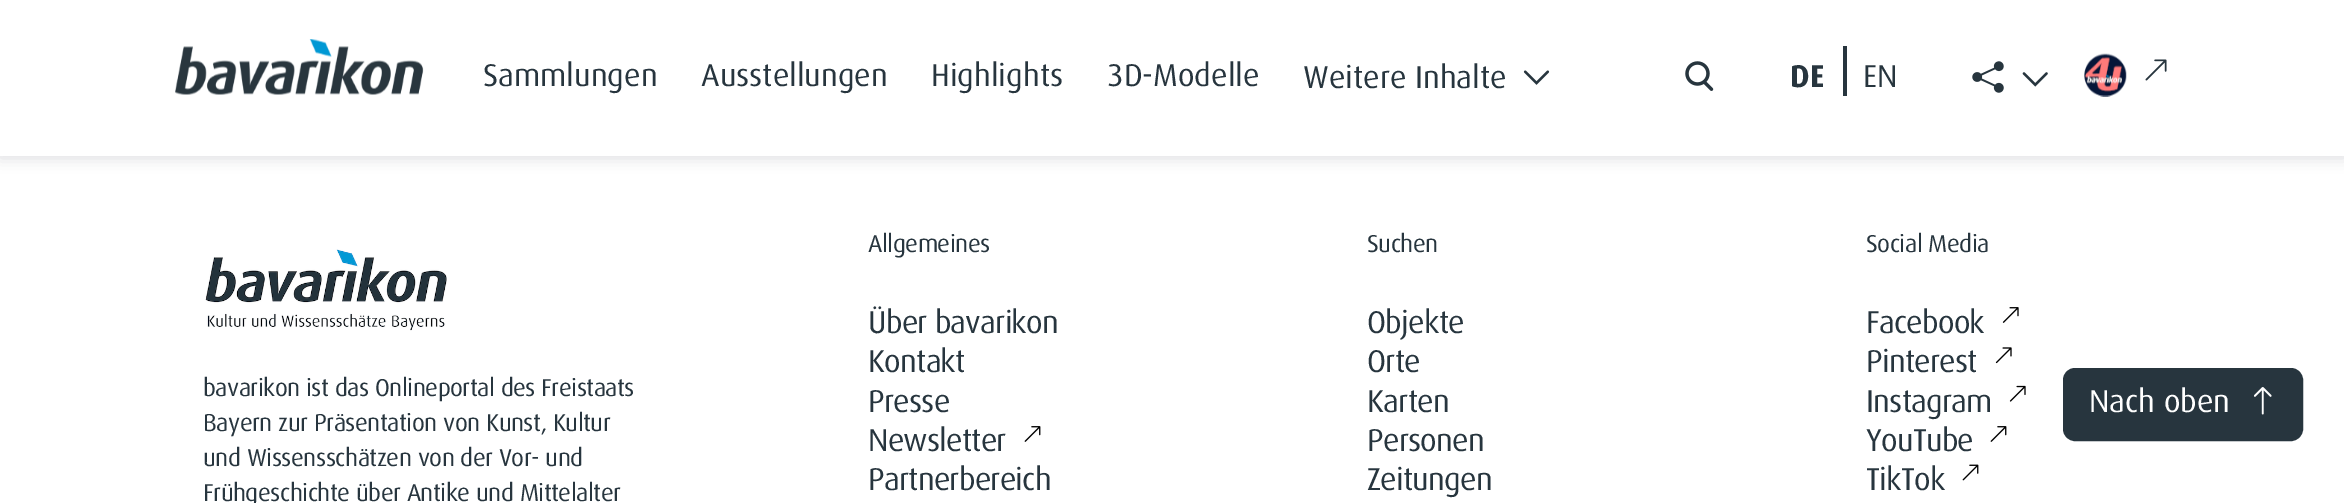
%!PS
<< /PageSize [2344 503] /PageUsesTransparency true >> setpagedevice
/alpha { dup .setfillconstantalpha .setstrokeconstantalpha } def
/roundrect { 5 dict begin { /r /h /w /y /x } { exch def } forall
  x r add y moveto x w add y 2 copy h add r arct x w add y h add x 1 index r arct
  x y h add x y r arct x y 2 copy exch w add exch r arct closepath end } def
/shadow { 12 dict begin { /a /b /q /h /w /y /x } { exch def } forall gsave /was 0 def
  9 -2 -9 { dup b mul 4 div /e exch def 1 sub .425 mul 2.718 exch exp 1 add a .99 .min exch div /now exch def
    1 1 now sub 1 was sub div sub alpha /was now def
    w h .min e 2 mul add 0 gt { x e sub y e sub w e 2 mul add h e 2 mul add
      q e add b .6 mul add w h .min 2 div e add .min 0 .max roundrect fill } if } for grestore end } def
/picture { 5 dict begin { /h /w /y /x /name } { exch def } forall
  gsave x y translate w h scale
  w h 8 [w 0 0 h 0 0] name (r) file false 3 colorimage grestore end } def
0 .pushpdf14devicefilter
0 503 translate 1 -1 scale
4 setmiterlimit
1 setgray
0 0 2344 503 rectfill
0.153 0.208 0.243 setrgbcolor
0 2 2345 156 0 7 0.17 shadow
1 setgray
0 0 2344 156 rectfill
(img1.rgb) 175 39 249 56 picture
/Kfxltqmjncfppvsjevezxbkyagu-Regular [31.5 0 0 -31.5 0 0] selectfont
0.153 0.208 0.243 setrgbcolor
483 86 moveto (Sammlungen) show
701 86 moveto (Ausstellungen) show
931 86 moveto (Highlights) show
1107 86 moveto (3D-Modelle) show
1303 88 moveto (Weitere Inhalte) show
(img2.rgb) 1523 70 27 15 picture
(img3.rgb) 1685 61 29 30 picture
/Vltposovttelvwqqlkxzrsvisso-Bold [31.5 0 0 -31.5 0 0] selectfont
1790 87 moveto (DE) show
1843 46 4 50 rectfill
/Kfxltqmjncfppvsjevezxbkyagu-Regular [31.5 0 0 -31.5 0 0] selectfont
1863 87 moveto (EN) show
(img4.rgb) 1972 61 32 32 picture
(img5.rgb) 2022 72 26 15 picture
(img6.rgb) 2084 53 43 44 picture
(img7.rgb) 2145 59 22 22 picture
(img8.rgb) 205 249 242 82 picture
/Kfxltqmjncfppvsjevezxbkyagu-Regular [24.5 0 0 -24.5 0 0] selectfont
203 396 moveto -0.5 0 (bavarikon ist das Onlineportal des Freistaats) ashow
203 431 moveto -0.5 0 (Bayern zur Präsentation von Kunst, Kultur) ashow
203 466 moveto -0.5 0 (und Wissensschätzen von der Vor- und) ashow
203 501 moveto -0.5 0 (Frühgeschichte über Antike und Mittelalter) ashow
868 252 moveto -0.5 0 (Allgemeines) ashow
/Kfxltqmjncfppvsjevezxbkyagu-Regular [31.5 0 0 -31.5 0 0] selectfont
868 333 moveto -0.75 0 (Über bavarikon) ashow
868 372 moveto -0.75 0 (Kontakt) ashow
868 412 moveto -0.75 0 (Presse) ashow
868 451 moveto -0.75 0 (Newsletter) ashow
(img9.rgb) 1024 426 17 16 picture
868 490 moveto -0.75 0 (Partnerbereich) ashow
/Kfxltqmjncfppvsjevezxbkyagu-Regular [24.5 0 0 -24.5 0 0] selectfont
1367 252 moveto -0.5 0 (Suchen) ashow
/Kfxltqmjncfppvsjevezxbkyagu-Regular [31.5 0 0 -31.5 0 0] selectfont
1367 333 moveto -0.75 0 (Objekte) ashow
1367 372 moveto -0.75 0 (Orte) ashow
1367 412 moveto -0.75 0 (Karten) ashow
1367 451 moveto -0.75 0 (Personen) ashow
1367 490 moveto -0.75 0 (Zeitungen) ashow
/Kfxltqmjncfppvsjevezxbkyagu-Regular [24.5 0 0 -24.5 0 0] selectfont
1866 252 moveto -0.5 0 (Social Media) ashow
/Kfxltqmjncfppvsjevezxbkyagu-Regular [31.5 0 0 -31.5 0 0] selectfont
1866 333 moveto -0.75 0 (Facebook) ashow
(img10.rgb) 2002 307 17 16 picture
1866 372 moveto -0.75 0 (Pinterest) ashow
(img11.rgb) 1995 347 17 17 picture
1866 412 moveto -0.75 0 (Instagram) ashow
(img12.rgb) 2009 385 17 17 picture
1866 451 moveto -0.75 0 (YouTube) ashow
(img9.rgb) 1990 426 17 16 picture
1866 490 moveto -0.75 0 (TikTok) ashow
(img13.rgb) 1962 464 17 17 picture
2064 369 238 71 11 roundrect gsave fill grestore
2 setlinewidth
stroke
1 setgray
2089 412 moveto (Nach oben) show
(img14.rgb) 2254 387 18 28 picture
.poppdf14devicefilter showpage
